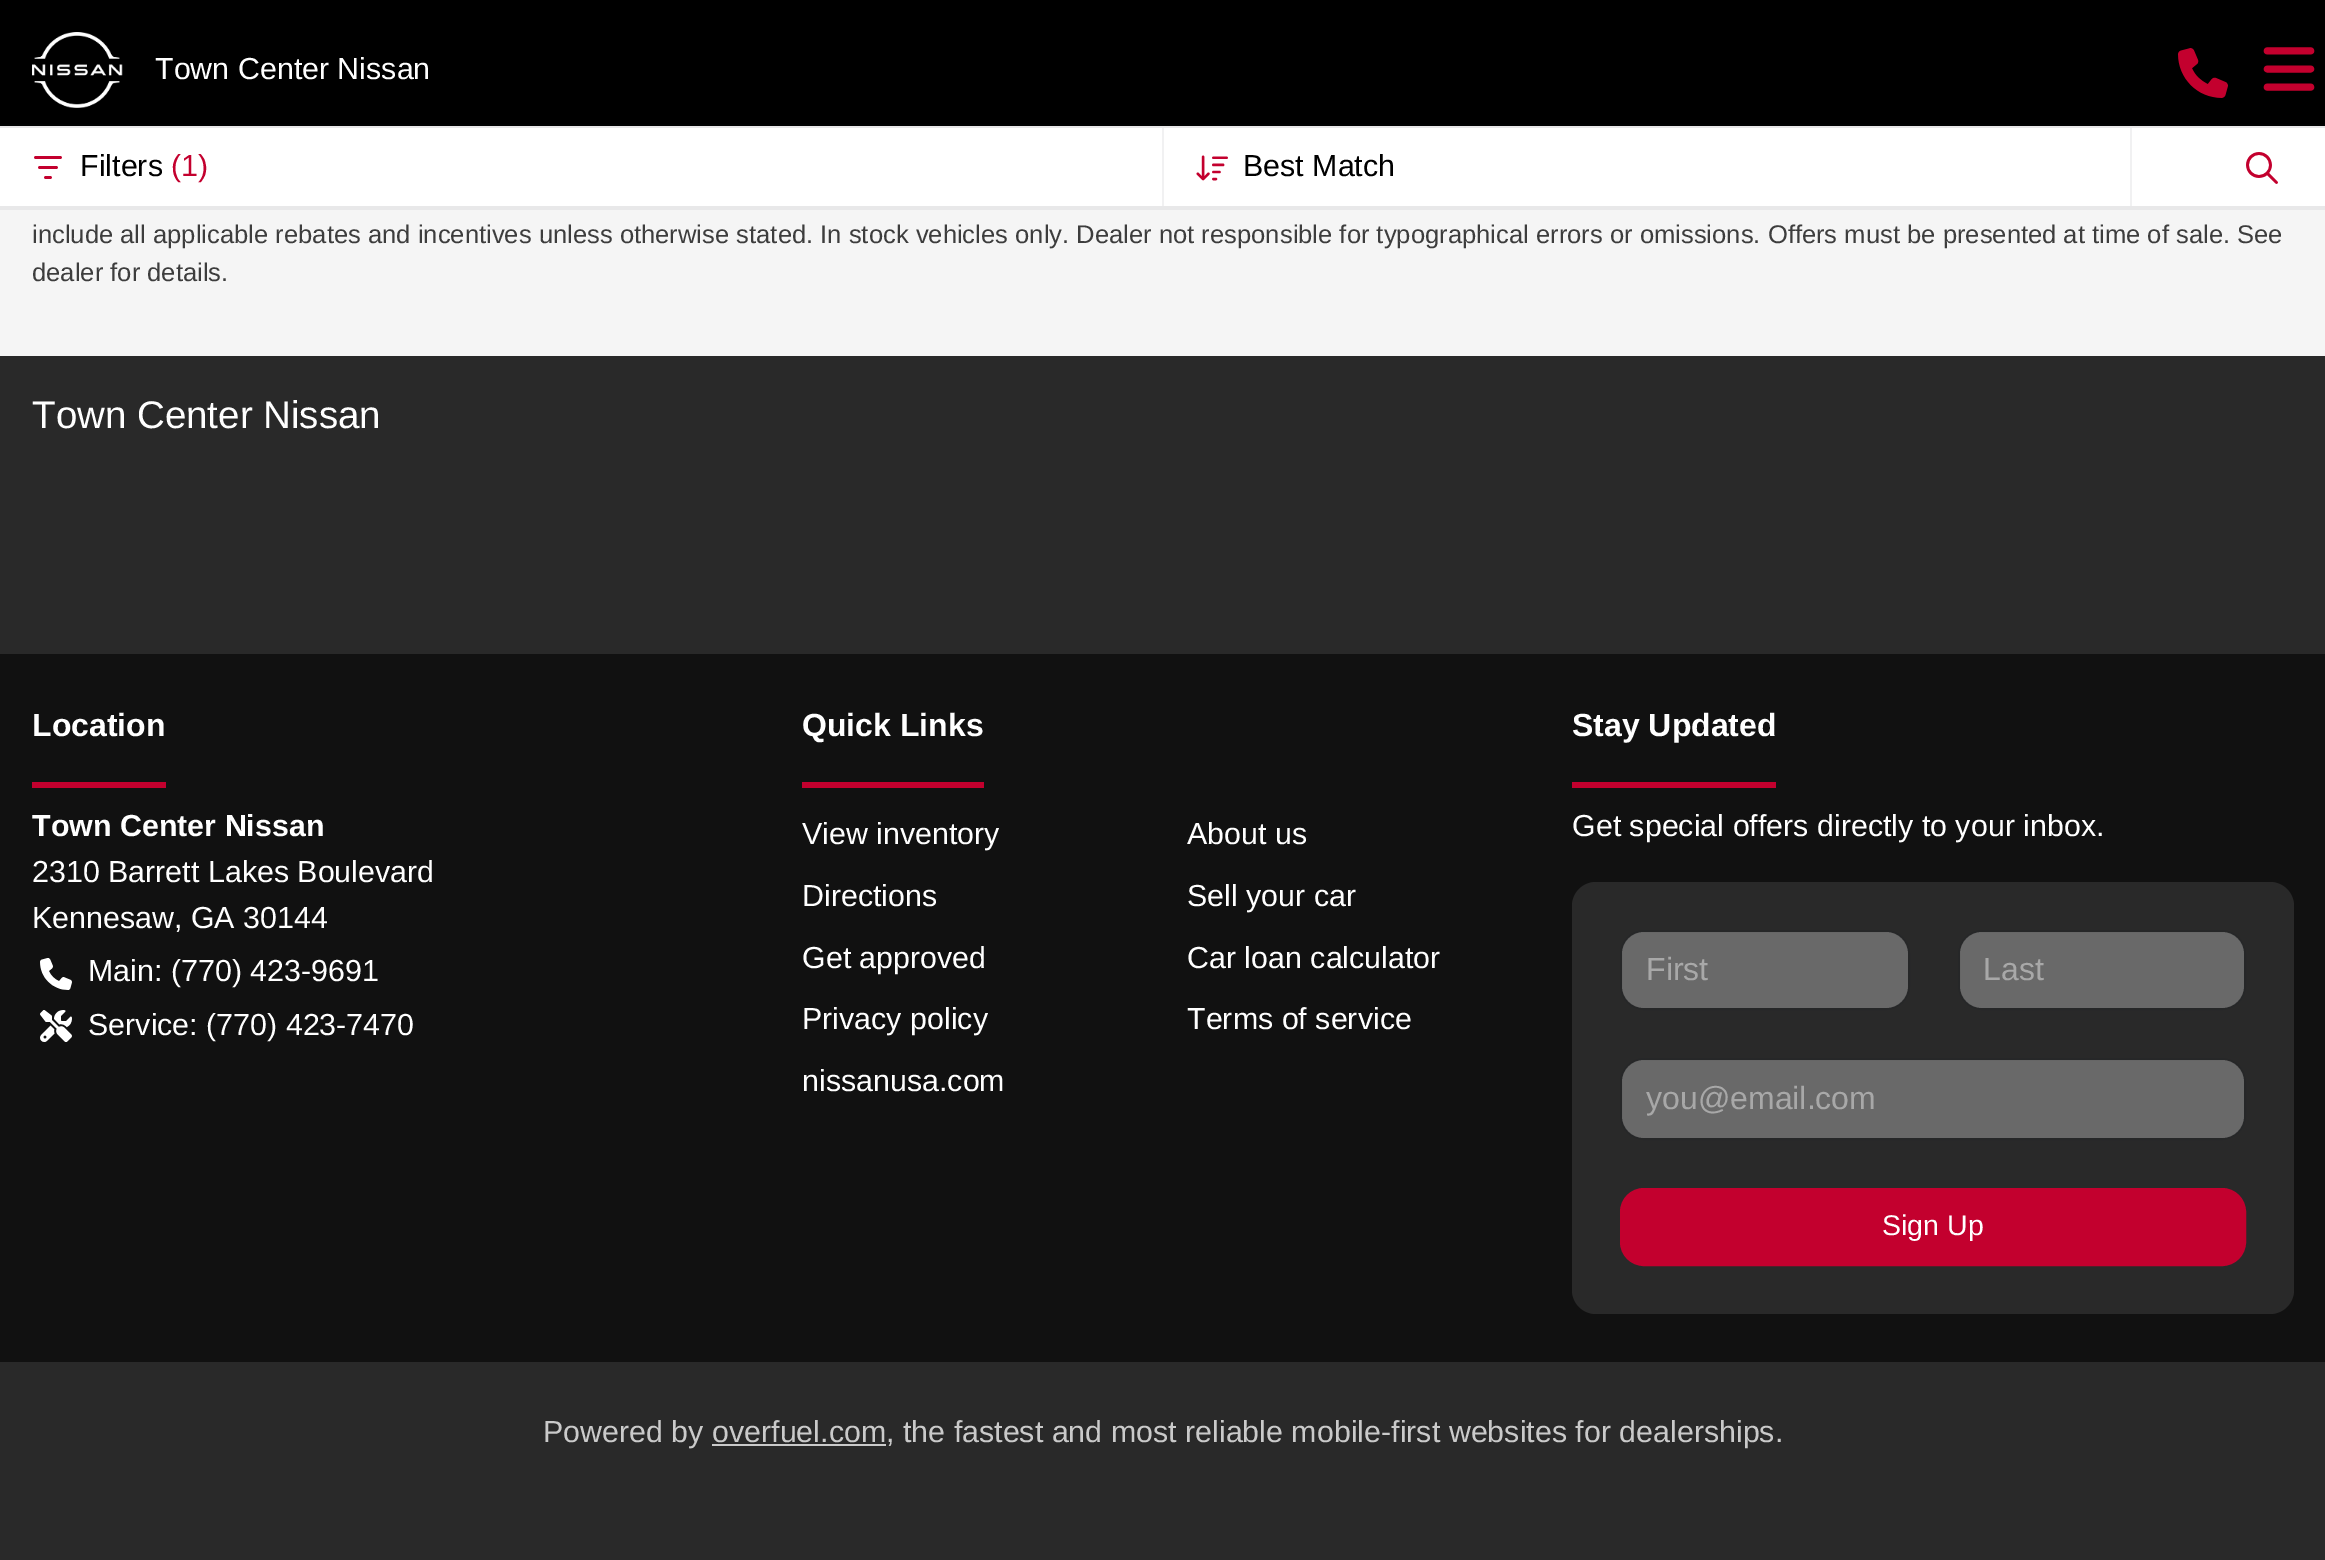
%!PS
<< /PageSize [2325 1560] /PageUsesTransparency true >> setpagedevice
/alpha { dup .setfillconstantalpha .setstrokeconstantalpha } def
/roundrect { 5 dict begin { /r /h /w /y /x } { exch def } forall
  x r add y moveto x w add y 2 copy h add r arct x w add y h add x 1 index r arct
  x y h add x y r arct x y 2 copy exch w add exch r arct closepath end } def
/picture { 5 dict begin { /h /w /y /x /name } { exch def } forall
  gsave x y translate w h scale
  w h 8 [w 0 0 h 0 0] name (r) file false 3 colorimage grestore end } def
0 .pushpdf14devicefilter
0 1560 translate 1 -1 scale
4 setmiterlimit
0.961 setgray
0 0 2325 1560 rectfill
0 setgray
0 0 2325 124 rectfill
0.008 0.012 0.012 setrgbcolor
0 124 2325 2 rectfill
(img1.rgb) 32 32 91 76 picture
/LiberationSans-Regular [30.4 0 0 -30.4 0 0] selectfont
1 setgray
155 79 moveto (Town Center Nissan) show
(img2.rgb) 2178 48 50 50 picture
(img3.rgb) 2263 47 52 44 picture
0 128 2325 78 rectfill
0.91 0.91 0.914 setrgbcolor
0 206 2325 4 rectfill
0 126 2325 2 rectfill
(img4.rgb) 34 156 28 23 picture
0 setgray
80 176 moveto (Filters) show
0.765 0 0.18 setrgbcolor
171 176 moveto (\(1\)) show
0.945 0.945 0.949 setrgbcolor
1162 128 2 78 rectfill
(img5.rgb) 1196 155 32 26 picture
0 setgray
1243 176 moveto (Best Match) show
0.945 0.945 0.949 setrgbcolor
2130 128 2 78 rectfill
(img6.rgb) 2246 152 32 32 picture
/LiberationSans-Regular [25.6 0 0 -25.6 0 0] selectfont
0.239 setgray
32 243 moveto (include all applicable rebates and incentives unless otherwise stated. In stock vehicles only. Dealer not responsible for typographical errors or omissions. Offers must be presented at time of sale. See) show
32 281 moveto (dealer for details.) show
0.067 setgray
0 654 2325 708 rectfill
0.161 setgray
0 356 2325 298 rectfill
/LiberationSans-Regular [38.5 0 0 -38.5 0 0] selectfont
1 setgray
32 428 moveto (Town Center Nissan) show
0.765 0 0.18 setrgbcolor
32 782 134 6 rectfill
/LiberationSans-Bold [32 0 0 -32 0 0] selectfont
1 setgray
32 736 moveto (Location) show
/LiberationSans-Bold [30.4 0 0 -30.4 0 0] selectfont
32 836 moveto (Town Center Nissan) show
/LiberationSans-Regular [30.4 0 0 -30.4 0 0] selectfont
32 882 moveto (2310 Barrett Lakes Boulevard) show
32 928 moveto (Kennesaw, GA 30144) show
(img7.rgb) 40 958 32 32 picture
88 981 moveto (Main: \(770\) 423-9691) show
(img8.rgb) 40 1010 32 32 picture
88 1035 moveto (Service: \(770\) 423-7470) show
0.765 0 0.18 setrgbcolor
802 782 182 6 rectfill
/LiberationSans-Bold [32 0 0 -32 0 0] selectfont
1 setgray
802 736 moveto (Quick Links) show
/LiberationSans-Regular [30.4 0 0 -30.4 0 0] selectfont
802 844 moveto (View inventory) show
1187 844 moveto (About us) show
802 906 moveto (Directions) show
1187 906 moveto (Sell your car) show
802 968 moveto (Get approved) show
1187 968 moveto (Car loan calculator) show
802 1029 moveto (Privacy policy) show
1187 1029 moveto (Terms of service) show
802 1091 moveto (nissanusa.com) show
0.765 0 0.18 setrgbcolor
1572 782 204 6 rectfill
/LiberationSans-Bold [32 0 0 -32 0 0] selectfont
1 setgray
1572 736 moveto (Stay Updated) show
/LiberationSans-Regular [30.4 0 0 -30.4 0 0] selectfont
1572 836 moveto (Get special offers directly to your inbox.) show
0.161 setgray
1572 882 722 432 24 roundrect fill
0.412 setgray
1622 932 286 76 22 roundrect fill
0.15 alpha
0.094 0.11 0.129 setrgbcolor
2 setlinewidth
1621 931 288 78 23 roundrect stroke
/LiberationSans-Regular [32 0 0 -32 0 0] selectfont
1 alpha
0.659 setgray
1646 980 moveto (First) show
0.412 setgray
1960 932 284 76 22 roundrect fill
0.15 alpha
0.094 0.11 0.129 setrgbcolor
1959 931 286 78 23 roundrect stroke
1 alpha
0.659 setgray
1983 980 moveto (Last) show
0.412 setgray
1622 1060 622 78 22 roundrect fill
0.15 alpha
0.094 0.11 0.129 setrgbcolor
1621 1059 624 80 23 roundrect stroke
1 alpha
0.659 setgray
1646 1109 moveto (you@email.com) show
0.765 0 0.18 setrgbcolor
1621 1189 624 76 23 roundrect gsave fill grestore
stroke
/LiberationSans-Regular [28.5 0 0 -28.5 0 0] selectfont
1 setgray
1882 1235 moveto (Sign Up) show
0.161 setgray
0 1362 2325 198 rectfill
/LiberationSans-Regular [30.4 0 0 -30.4 0 0] selectfont
0.792 setgray
543 1442 moveto (Powered by overfuel.com, the fastest and most reliable mobile-first websites for dealerships.) show
712 1444 174 2 rectfill
.poppdf14devicefilter showpage
